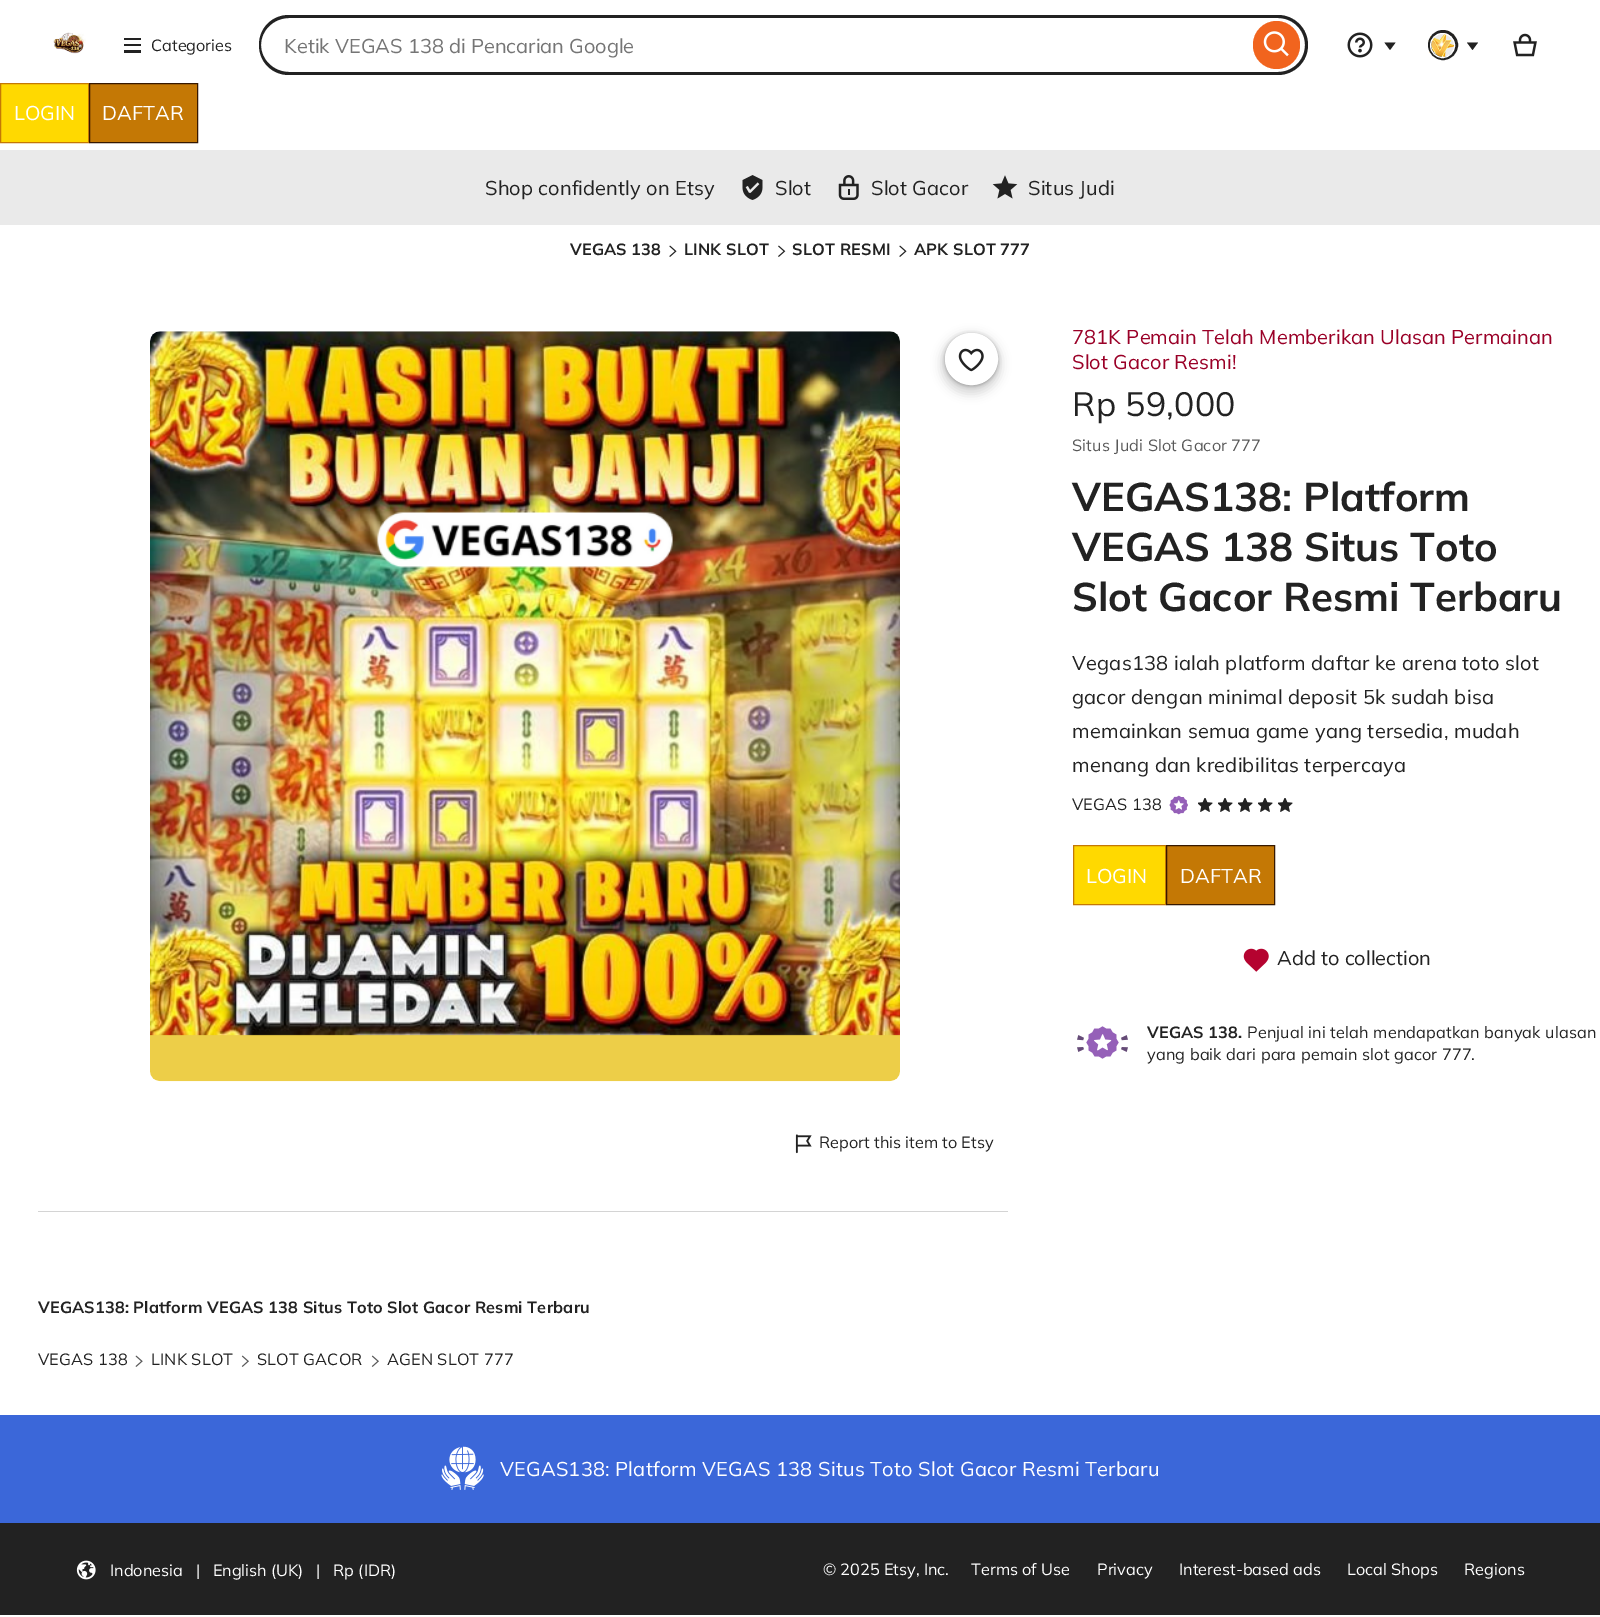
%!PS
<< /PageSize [1600 1617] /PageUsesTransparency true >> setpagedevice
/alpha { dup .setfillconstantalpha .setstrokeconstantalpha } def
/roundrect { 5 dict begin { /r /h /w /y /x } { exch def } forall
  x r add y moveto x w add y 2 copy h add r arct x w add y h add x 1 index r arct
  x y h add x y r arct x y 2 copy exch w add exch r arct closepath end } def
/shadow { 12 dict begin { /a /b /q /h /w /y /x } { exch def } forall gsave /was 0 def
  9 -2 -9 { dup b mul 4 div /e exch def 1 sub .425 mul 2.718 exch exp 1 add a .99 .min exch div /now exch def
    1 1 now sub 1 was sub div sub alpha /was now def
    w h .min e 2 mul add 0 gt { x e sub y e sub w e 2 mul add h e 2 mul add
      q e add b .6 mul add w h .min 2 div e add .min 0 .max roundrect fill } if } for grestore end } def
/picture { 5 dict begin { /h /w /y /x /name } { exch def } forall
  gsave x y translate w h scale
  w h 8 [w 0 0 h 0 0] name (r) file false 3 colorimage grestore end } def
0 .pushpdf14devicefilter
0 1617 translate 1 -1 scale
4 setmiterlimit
1 setgray
0 0 1600 1617 rectfill
(img1.rgb) 53 32 33 22 picture
0.133 setgray
124 44 17 2 rectfill
124 50 17 3 rectfill
124 38 17 2 rectfill
/Mulish-Regular [16.25 0 0 -16.25 0 0] selectfont
151 51 moveto (Categories) show
newpath 289 15 moveto 1246 15 lineto 1246 75 lineto 289 75 lineto 272 75 259 62 259 45 curveto 259 28 272 15 289 15 curveto closepath 289 18 moveto 1246 18 lineto 1246 72 lineto 289 72 lineto 274 72 261 60 261 45 curveto 261 30 274 18 289 18 curveto closepath eofill
/Mulish-Regular [20 0 0 -20 0 0] selectfont
0.459 setgray
284 53 moveto (Ketik VEGAS 138 di Pencarian Google) show
0.133 setgray
newpath 1246 15 moveto 1278 15 lineto 1294 15 1308 28 1308 45 curveto 1308 62 1294 75 1278 75 curveto 1246 75 lineto closepath 1246 18 moveto 1278 18 lineto 1293 18 1305 30 1305 45 curveto 1305 60 1293 72 1278 72 curveto 1246 72 lineto closepath eofill
0.945 0.392 0.118 setrgbcolor
1253 21 47 48 23.5 roundrect fill
(img2.rgb) 1263 31 26 26 picture
(img3.rgb) 1347 32 26 26 picture
0.133 setgray
newpath 1395.5 42.5 moveto 1390 50 lineto 1384.5 42.5 lineto closepath fill
0.918 setgray
newpath 1443 45 15 0 360 arc closepath fill
(img4.rgb) 1428 32 29 25 picture
0.133 setgray
3 setlinewidth
newpath 1443 45 13.5 0 360 arc closepath stroke
1 setgray
1 setlinewidth
newpath 1442.5 45.5 12 0 360 arc closepath stroke
0.133 setgray
newpath 1478 42.5 moveto 1472.5 50 lineto 1467 42.5 lineto closepath fill
(img5.rgb) 1513 33 24 24 picture
1 0.851 0 setrgbcolor
newpath 0.5 83.5 moveto 88.5 83.5 lineto 88.5 142.5 lineto 0.5 142.5 lineto closepath gsave fill grestore
0.769 0.471 0.02 setrgbcolor
stroke
1 setgray
14 120 moveto (LOGIN) show
0.769 0.471 0.02 setrgbcolor
newpath 89.5 83.5 moveto 197.5 83.5 lineto 197.5 142.5 lineto 89.5 142.5 lineto closepath gsave fill grestore
0.212 0.094 0 setrgbcolor
stroke
1 setgray
102 120 moveto (DAFTAR) show
0.918 setgray
0 150 1600 75 rectfill
0.133 setgray
485 195 moveto 0.1 0 (Shop confidently on Etsy) ashow
(img6.rgb) 742 175 21 25 picture
775 195 moveto 0.1 0 (Slot) ashow
(img7.rgb) 838 175 21 25 picture
871 195 moveto 0.1 0 (Slot Gacor) ashow
(img8.rgb) 992 175 26 24 picture
1028 195 moveto 0.1 0 (Situs Judi) ashow
/Mulish-Bold [16.25 0 0 -16.25 0 0] selectfont
570 255 moveto 0.15 0 (VEGAS 138) ashow
(img9.rgb) 669 245 8 12 picture
684 255 moveto 0.15 0 (LINK SLOT) ashow
(img10.rgb) 778 245 8 12 picture
792 255 moveto 0.15 0 (SLOT RESMI) ashow
(img9.rgb) 899 245 8 12 picture
914 255 moveto 0.15 0 (APK SLOT 777) ashow
/Mulish-Regular [20 0 0 -20 0 0] selectfont
0.604 0 0.153 setrgbcolor
1072 344 moveto 0.1 0 (781K Pemain Telah Memberikan Ulasan Permainan) ashow
1072 369 moveto 0.1 0 (Slot Gacor Resmi!) ashow
/Mulish-Regular [33.75 0 0 -33.75 0 0] selectfont
0.133 setgray
1072 416 moveto 0.25 0 (Rp 59,000) ashow
/Mulish-Regular [16.25 0 0 -16.25 0 0] selectfont
0.349 setgray
1072 451 moveto 0.15 0 (Situs Judi Slot Gacor 777) ashow
/Mulish-Bold [40 0 0 -40 0 0] selectfont
0.133 setgray
1072 511 moveto (VEGAS138: Platform) show
1072 561 moveto (VEGAS 138 Situs Toto) show
1072 611 moveto (Slot Gacor Resmi Terbaru) show
/Mulish-Regular [20 0 0 -20 0 0] selectfont
1072 670 moveto 0.2 0 (Vegas138 ialah platform daftar ke arena toto slot) ashow
1072 704 moveto 0.2 0 (gacor dengan minimal deposit 5k sudah bisa) ashow
1072 738 moveto 0.2 0 (memainkan semua game yang tersedia, mudah) ashow
1072 772 moveto 0.2 0 (menang dan kredibilitas terpercaya) ashow
/Mulish-Regular [16.25 0 0 -16.25 0 0] selectfont
1072 810 moveto 0.15 0 (VEGAS 138) ashow
(img11.rgb) 1169 795 19 20 picture
(img12.rgb) 1198 798 15 14 picture
(img12.rgb) 1218 798 15 14 picture
(img12.rgb) 1238 798 15 14 picture
(img12.rgb) 1258 798 15 14 picture
(img12.rgb) 1278 798 15 14 picture
1 0.851 0 setrgbcolor
newpath 1073.5 845.5 moveto 1165.5 845.5 lineto 1165.5 904.5 lineto 1073.5 904.5 lineto closepath gsave fill grestore
0.769 0.471 0.02 setrgbcolor
stroke
/Mulish-Regular [20 0 0 -20 0 0] selectfont
1 setgray
1086 883 moveto (LOGIN) show
0.769 0.471 0.02 setrgbcolor
newpath 1166.5 845.5 moveto 1274.5 845.5 lineto 1274.5 904.5 lineto 1166.5 904.5 lineto closepath gsave fill grestore
0.212 0.094 0 setrgbcolor
stroke
1 setgray
1180 883 moveto (DAFTAR) show
(img13.rgb) 1243 948 26 24 picture
0.133 setgray
1277 965 moveto (Add to collection) show
(img14.rgb) 1077 1026 51 33 picture
/Mulish-Bold [16.25 0 0 -16.25 0 0] selectfont
1147 1038 moveto 0.15 0 (VEGAS 138.) ashow
/Mulish-Regular [16.25 0 0 -16.25 0 0] selectfont
1247 1038 moveto 0.15 0 (Penjual ini telah mendapatkan banyak ulasan) ashow
1147 1060 moveto 0.15 0 (yang baik dari para pemain slot gacor 777.) ashow
(img15.rgb) 150 331 750 751 picture
0 setgray
941 334 60 60 30 5 0.15 shadow
945 334 53 52 26 2 0.3 shadow
1 setgray
945.5 333.5 52 51 25.5 roundrect gsave fill grestore
stroke
(img16.rgb) 958 348 26 24 picture
(img17.rgb) 795 1134 17 20 picture
0.133 setgray
819 1148 moveto (Report this item to Etsy) show
0.831 setgray
38 1211 970 1 rectfill
/Mulish-Bold [16.25 0 0 -16.25 0 0] selectfont
0.133 setgray
38 1313 moveto 0.15 0 (VEGAS138: Platform VEGAS 138 Situs Toto Slot Gacor Resmi Terbaru) ashow
/Mulish-Regular [16.25 0 0 -16.25 0 0] selectfont
38 1365 moveto 0.15 0 (VEGAS 138) ashow
(img18.rgb) 135 1355 8 12 picture
151 1365 moveto 0.15 0 (LINK SLOT) ashow
(img19.rgb) 241 1355 8 12 picture
257 1365 moveto 0.15 0 (SLOT GACOR) ashow
(img19.rgb) 371 1355 8 12 picture
387 1365 moveto 0.15 0 (AGEN SLOT 777) ashow
0.231 0.404 0.851 setrgbcolor
0 1415 1600 108 rectfill
(img20.rgb) 441 1446 43 44 picture
/Mulish-Regular [20 0 0 -20 0 0] selectfont
1 setgray
500 1476 moveto 0.2 0 (VEGAS138: Platform VEGAS 138 Situs Toto Slot Gacor Resmi Terbaru) ashow
0.133 setgray
0 1523 1600 92 rectfill
(img21.rgb) 76 1560 20 20 picture
/Mulish-Regular [16.25 0 0 -16.25 0 0] selectfont
1 setgray
110 1576 moveto (Indonesia   |   English \(UK\)   |   Rp \(IDR\)) show
823 1575 moveto (© 2025 Etsy, Inc.) show
971 1575 moveto (Terms of Use) show
1097 1575 moveto (Privacy) show
1179 1575 moveto (Interest-based ads) show
1347 1575 moveto (Local Shops) show
1464 1575 moveto (Regions) show
.poppdf14devicefilter showpage
